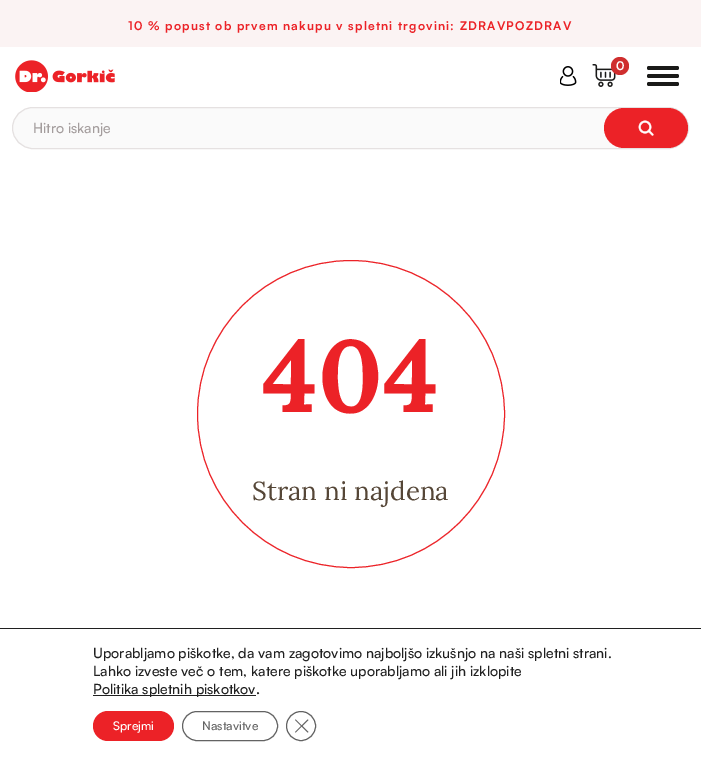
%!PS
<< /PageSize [701 759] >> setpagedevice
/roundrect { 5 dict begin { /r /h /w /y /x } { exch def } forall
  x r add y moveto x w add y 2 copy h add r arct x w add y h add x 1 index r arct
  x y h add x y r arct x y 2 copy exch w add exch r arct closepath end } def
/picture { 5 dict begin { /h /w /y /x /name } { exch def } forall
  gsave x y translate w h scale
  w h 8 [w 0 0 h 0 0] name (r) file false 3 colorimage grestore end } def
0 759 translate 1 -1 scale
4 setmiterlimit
1 setgray
0 0 701 759 rectfill
0.984 0.953 0.953 setrgbcolor
0 0 701 47 rectfill
/Satoshi-Bold [12 0 0 -12 0 0] selectfont
0.925 0.133 0.153 setrgbcolor
128 30 moveto 1.2 0 (10 % popust ob prvem nakupu v spletni trgovini: ZDRAVPOZDRAV) ashow
(img1.rgb) 15 60 100 32 picture
(img2.rgb) 560 66 17 20 picture
(img3.rgb) 592 64 24 23 picture
0.812 0.18 0.18 setrgbcolor
newpath 620 66 9 0 360 arc closepath fill
1 setgray
616 70 moveto (0) show
0.98 setgray
12.5 107.5 676 41 20.5 roundrect gsave fill grestore
0.898 0.882 0.882 setrgbcolor
stroke
/Satoshi-Medium [14 0 0 -14 0 0] selectfont
0.643 0.616 0.616 setrgbcolor
33 133 moveto (Hitro iskanje) show
0.925 0.133 0.153 setrgbcolor
604 108 84 40 20 roundrect fill
(img4.rgb) 638 120 16 16 picture
0.102 0.102 0.098 setrgbcolor
647 66 32 4 2 roundrect fill
647 74 32 4 2 roundrect fill
647 82 32 4 2 roundrect fill
0.925 0.133 0.153 setrgbcolor
newpath 351 414 153.5 0 360 arc closepath stroke
/Lora-Bold [102 0 0 -102 0 0] selectfont
262 412 moveto (404) show
/Lora-Regular [26 0 0 -26 0 0] selectfont
0.333 0.275 0.216 setrgbcolor
252 500 moveto (Stran ni najdena) show
0.125 setgray
0 628 701 1 rectfill
/Satoshi-Medium [14 0 0 -14 0 0] selectfont
93 658 moveto (Uporabljamo piškotke, da vam zagotovimo najboljšo izkušnjo na naši spletni strani.) show
93 676 moveto (Lahko izveste več o tem, katere piškotke uporabljamo ali jih izklopite) show
93 695 163 1 rectfill
93 694 moveto (Politika spletnih piskotkov) show
/Satoshi-Medium [15 0 0 -15 0 0] selectfont
256 694 moveto (.) show
0.925 0.133 0.153 setrgbcolor
93 711 81 30 15 roundrect fill
/Satoshi-Medium [12 0 0 -12 0 0] selectfont
1 setgray
113 730 moveto (Sprejmi) show
0.388 setgray
182.5 711.5 95 29 14.5 roundrect stroke
202 730 moveto (Nastavitve) show
0.384 setgray
newpath 301 726 14.5 0 360 arc closepath stroke
newpath 307.5 719.5 moveto 308.5 720 lineto 295.5 732.5 lineto 295 732 lineto closepath fill
newpath 295 720 moveto 295.5 719.5 lineto 308.5 732 lineto 307.5 732.5 lineto closepath fill
showpage
